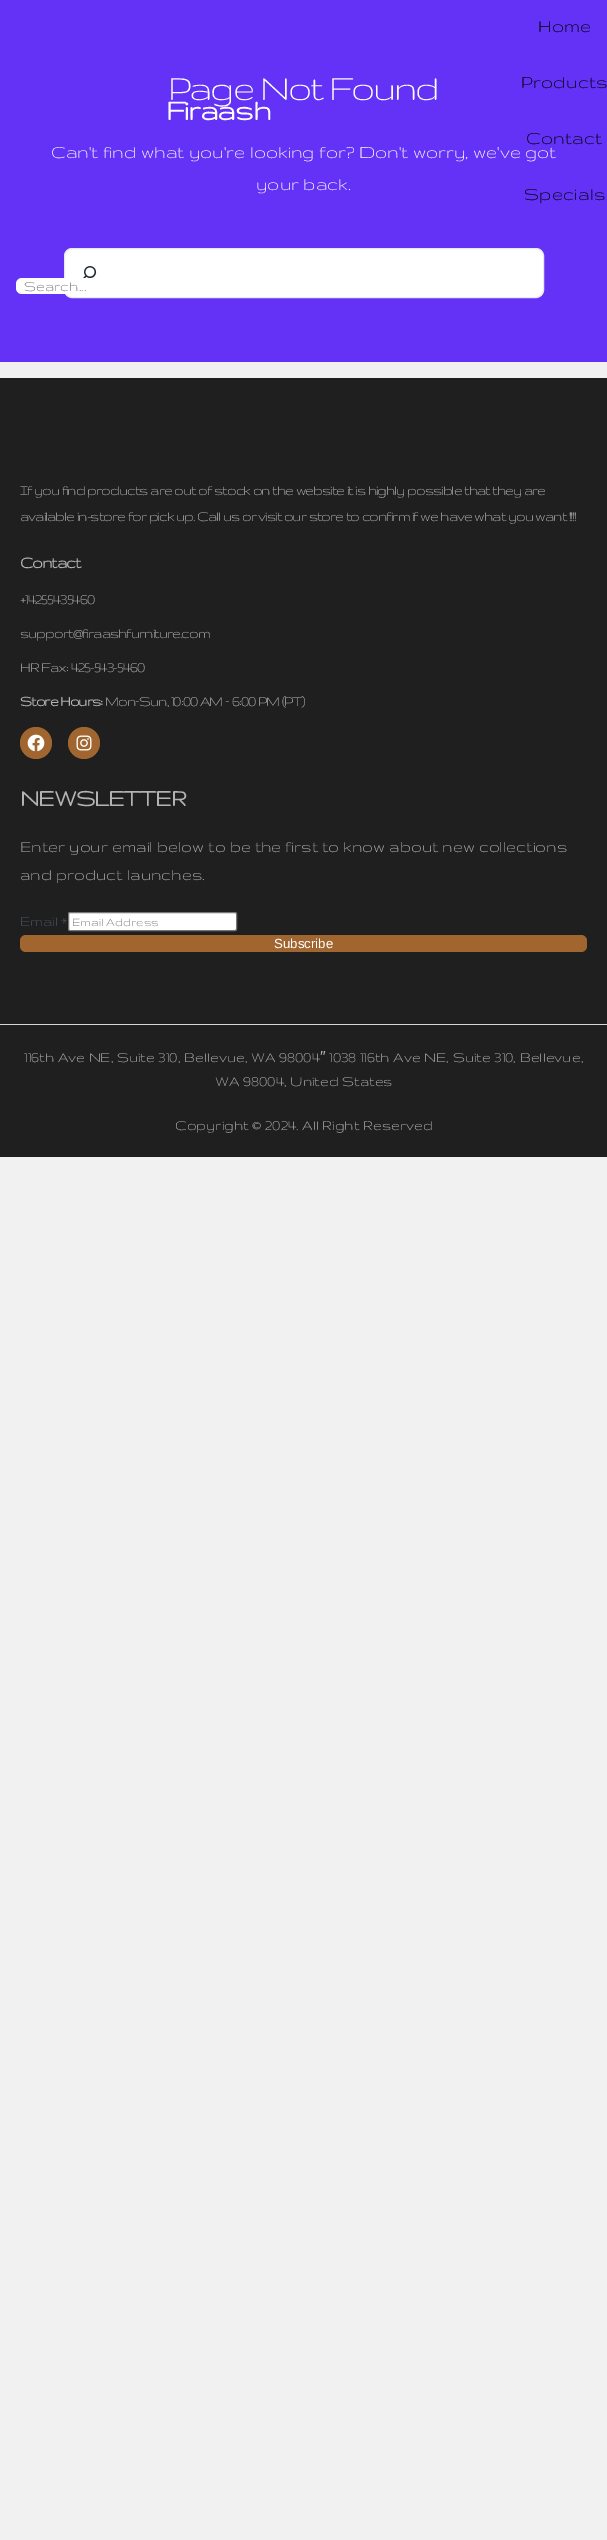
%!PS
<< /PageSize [607 2540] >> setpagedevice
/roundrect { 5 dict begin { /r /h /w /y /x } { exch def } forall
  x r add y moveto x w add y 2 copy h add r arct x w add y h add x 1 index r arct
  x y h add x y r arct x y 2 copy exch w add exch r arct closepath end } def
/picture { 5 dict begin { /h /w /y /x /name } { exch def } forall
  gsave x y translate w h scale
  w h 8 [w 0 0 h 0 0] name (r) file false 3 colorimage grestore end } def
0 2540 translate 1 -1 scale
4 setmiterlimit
0.945 setgray
0 0 607 2540 rectfill
0.392 0.192 0.969 setrgbcolor
0 0 607 362 rectfill
/Gruppo-Bold [32 0 0 -32 0 0] selectfont
1 setgray
166 120 moveto -1 0 (Firaash) ashow
/Gruppo-Regular [20 0 0 -20 0 0] selectfont
0 setgray
538 32 moveto 0.25 0 (Home) ashow
521 88 moveto 0.25 0 (Products) ashow
526 144 moveto 0.25 0 (Contact) ashow
524 200 moveto 0.25 0 (Specials) ashow
/Gruppo-Regular [40 0 0 -40 0 0] selectfont
1 setgray
168 100 moveto -2 0 (Page Not Found) ashow
/Gruppo-Regular [20 0 0 -20 0 0] selectfont
51 158 moveto (Can't find what you're looking for? Don't worry, we've got) show
256 190 moveto (your back.) show
64.5 248.5 479 49 7.5 roundrect gsave fill grestore
0.902 0.914 0.937 setrgbcolor
stroke
(img1.rgb) 83 266 14 12 picture
1 setgray
16 278 208 16 6 roundrect fill
/Gruppo-Regular [16 0 0 -16 0 0] selectfont
0.459 setgray
24 291 moveto (Search...) show
0.122 setgray
0 378 607 779 rectfill
0.702 setgray
20 495 moveto -1 0 (If you find products are out of stock on the website it is highly possible that they are) ashow
20 521 moveto -1 0 (available in-store for pick up. Call us or visit our store to confirm if we have what you want !!!!) ashow
/Gruppo-Bold [18 0 0 -18 0 0] selectfont
20 568 moveto -1 0 (Contact) ashow
/Gruppo-Regular [16 0 0 -16 0 0] selectfont
20 604 moveto -1 0 (+14255435460) ashow
20 638 moveto -1 0 (support@firaashfurniture.com) ashow
20 672 moveto -1 0 (HR Fax: 425-543-5460) ashow
/Gruppo-Bold [16 0 0 -16 0 0] selectfont
20 706 moveto -1 0 (Store Hours:) ashow
/Gruppo-Regular [16 0 0 -16 0 0] selectfont
105 706 moveto -1 0 (Mon–Sun, 10:00 AM – 6:00 PM \(PT\)) ashow
0.631 0.4 0.184 setrgbcolor
newpath 36 743 16 0 360 arc closepath fill
(img2.rgb) 27 734 18 18 picture
newpath 84 743 16 0 360 arc closepath fill
(img3.rgb) 76 735 16 16 picture
/Gruppo-Bold [26 0 0 -26 0 0] selectfont
0.702 setgray
20 806 moveto -1 0 (NEWSLETTER) ashow
/Gruppo-Regular [18 0 0 -18 0 0] selectfont
20 852 moveto (Enter your email below to be the first to know about new collections) show
20 880 moveto (and product launches.) show
/Gruppo-Regular [16 0 0 -16 0 0] selectfont
0.294 0.333 0.388 setrgbcolor
20 926 moveto (Email *) show
1 setgray
68.5 912.5 168 18 1.5 roundrect gsave fill grestore
0.463 setgray
stroke
/Gruppo-Regular [13.25 0 0 -13.25 0 0] selectfont
0.459 setgray
72 926 moveto (Email Address) show
0.631 0.4 0.184 setrgbcolor
20 935 567 17 6 roundrect fill
/LiberationSans-Regular [13.25 0 0 -13.25 0 0] selectfont
1 setgray
274 948 moveto (Subscribe) show
0.843 setgray
0 1024 607 1 rectfill
/Gruppo-Regular [16 0 0 -16 0 0] selectfont
0.702 setgray
24 1062 moveto (116th Ave NE, Suite 310, Bellevue, WA 98004) show
/LiberationSans-Regular [16 0 0 -16 0 0] selectfont
320 1062 moveto (″) show
/Gruppo-Regular [16 0 0 -16 0 0] selectfont
329 1062 moveto (1038 116th Ave NE, Suite 310, Bellevue,) show
215 1086 moveto (WA 98004, United States) show
175 1130 moveto (Copyright © 2024. All Right Reserved) show
showpage
